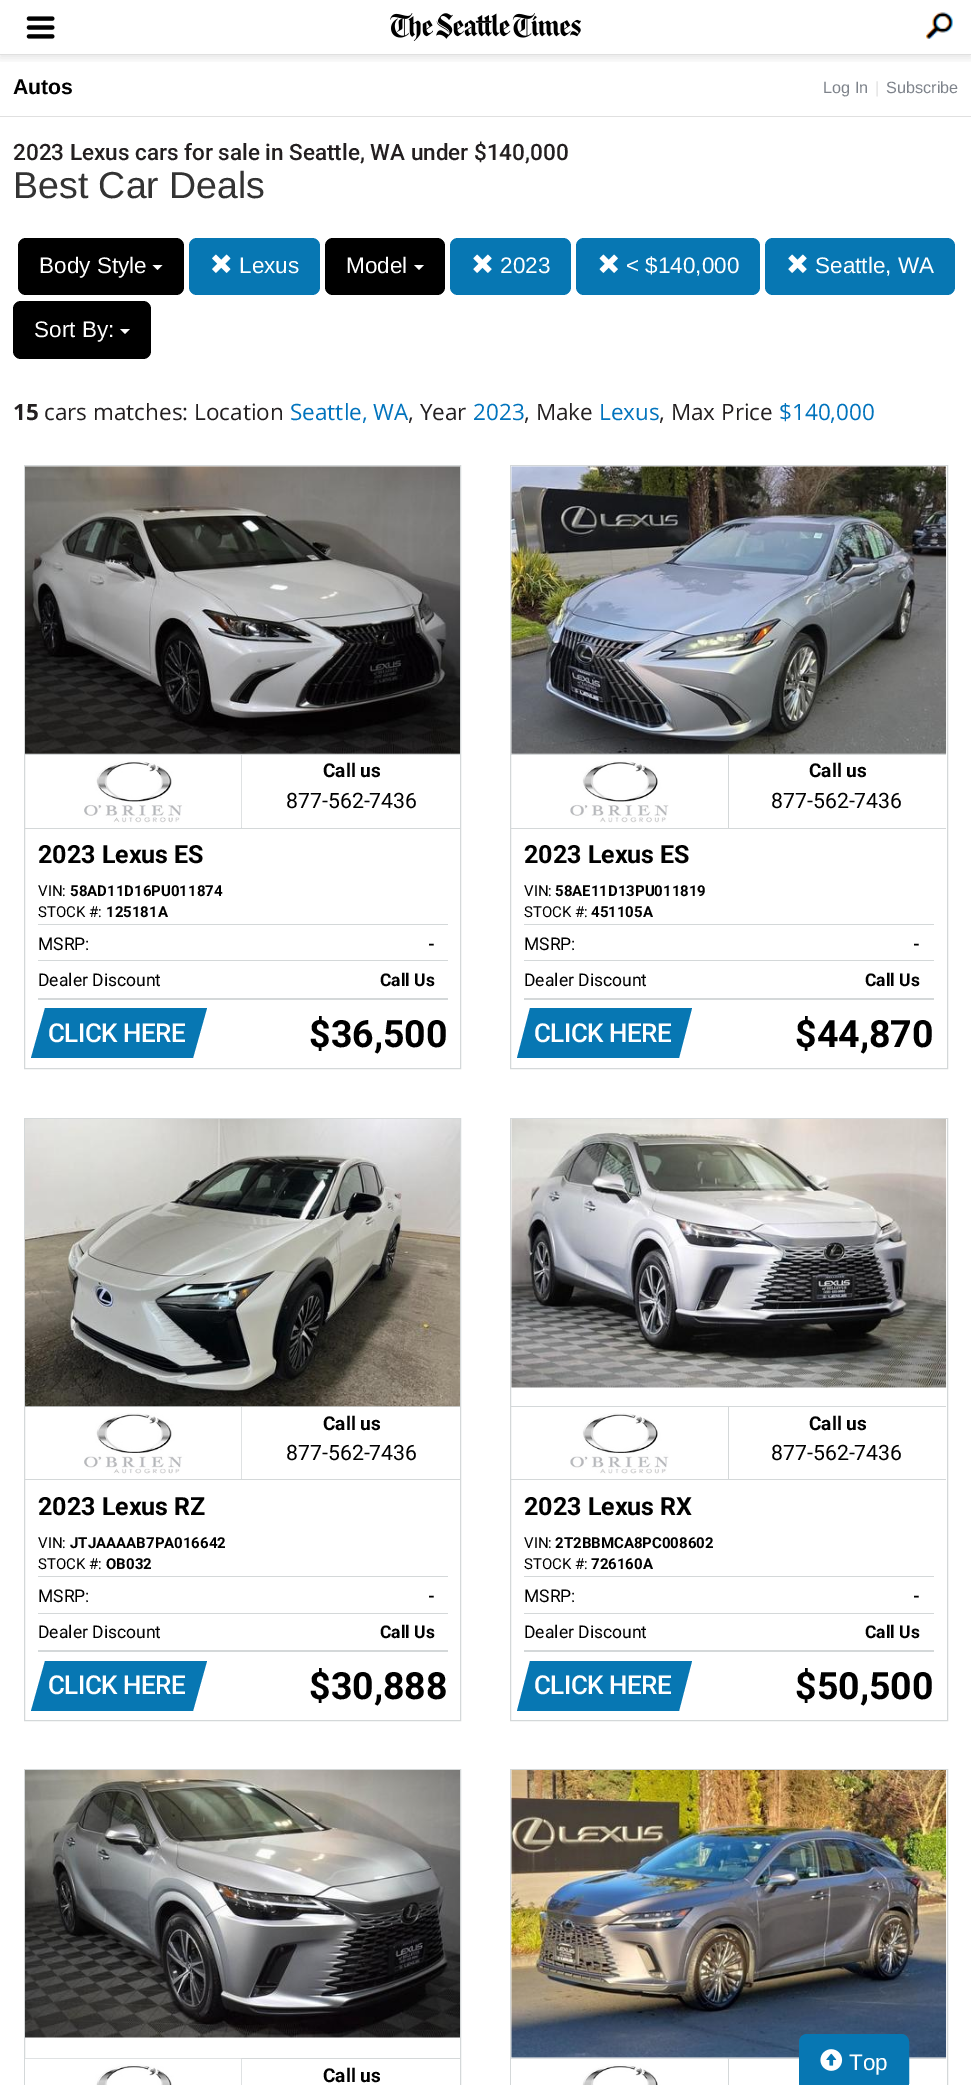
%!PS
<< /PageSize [971 2085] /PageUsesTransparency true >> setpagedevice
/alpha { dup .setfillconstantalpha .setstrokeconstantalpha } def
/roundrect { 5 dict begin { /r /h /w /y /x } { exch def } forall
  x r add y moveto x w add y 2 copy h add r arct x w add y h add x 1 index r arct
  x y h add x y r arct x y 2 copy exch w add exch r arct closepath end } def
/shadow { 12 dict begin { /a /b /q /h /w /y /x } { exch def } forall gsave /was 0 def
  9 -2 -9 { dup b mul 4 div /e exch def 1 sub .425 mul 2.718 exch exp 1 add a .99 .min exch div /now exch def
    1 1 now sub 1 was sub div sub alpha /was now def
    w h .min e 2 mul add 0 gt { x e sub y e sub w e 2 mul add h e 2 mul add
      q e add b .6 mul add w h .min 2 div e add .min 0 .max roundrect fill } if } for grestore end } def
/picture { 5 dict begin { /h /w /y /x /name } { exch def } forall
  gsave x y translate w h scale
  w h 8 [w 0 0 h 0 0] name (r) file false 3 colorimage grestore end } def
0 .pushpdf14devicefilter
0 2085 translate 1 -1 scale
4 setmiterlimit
1 setgray
0 0 971 2085 rectfill
gsave
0 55 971 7 rectclip
0 setgray
0 3 971 55 0 4.5 0.1 shadow
grestore
0.878 setgray
0 54 971 1 rectfill
(img1.rgb) 26 16 29 23 picture
(img2.rgb) 390 13 191 28 picture
(img3.rgb) 926 12 27 27 picture
0 116 971 1 rectfill
/LiberationSans-Bold [21.25 0 0 -21.25 0 0] selectfont
0 setgray
13 94 moveto (Autos) show
/LiberationSans-Regular [16.25 0 0 -16.25 0 0] selectfont
0.494 0.514 0.545 setrgbcolor
823 93 moveto (Log In) show
0.878 setgray
875 93 moveto (|) show
0.494 0.514 0.545 setrgbcolor
886 93 moveto (Subscribe) show
/Roboto-Medium [22.5 0 0 -22.5 0 0] selectfont
0.137 0.122 0.125 setrgbcolor
13 160 moveto (2023 Lexus cars for sale in Seattle, WA under $140,000) show
/LiberationSans-Regular [37.5 0 0 -37.5 0 0] selectfont
0.2 setgray
13 198 moveto (Best Car Deals) show
0 setgray
18 238 166 57 8 roundrect fill
/LiberationSans-Regular [22.5 0 0 -22.5 0 0] selectfont
1 setgray
39 273 moveto (Body Style) show
newpath 152.5 265 moveto 162.5 265 lineto 157.5 270 lineto closepath fill
0.027 0.467 0.702 setrgbcolor
189 238 131 57 8 roundrect fill
(img4.rgb) 212 254 19 19 picture
1 setgray
239 273 moveto (Lexus) show
0 setgray
325 238 120 57 8 roundrect fill
1 setgray
346 273 moveto (Model) show
newpath 414 265 moveto 424 265 lineto 419 270 lineto closepath fill
0.027 0.467 0.702 setrgbcolor
450 238 121 57 8 roundrect fill
(img5.rgb) 473 254 19 19 picture
1 setgray
500 273 moveto (2023) show
0.027 0.467 0.702 setrgbcolor
576 238 184 57 8 roundrect fill
(img6.rgb) 599 254 19 19 picture
1 setgray
626 273 moveto (< $140,000) show
0.027 0.467 0.702 setrgbcolor
765 238 190 57 8 roundrect fill
(img5.rgb) 788 254 19 19 picture
1 setgray
815 273 moveto (Seattle, WA) show
0 setgray
13 301 138 58 8 roundrect fill
1 setgray
34 337 moveto (Sort By:) show
newpath 120 329 moveto 130 329 lineto 125 334 lineto closepath fill
/OpenSans-Bold [22.5 0 0 -22.5 0 0] selectfont
0.137 0.122 0.125 setrgbcolor
13 420 moveto (15) show
/OpenSans-Regular [22.5 0 0 -22.5 0 0] selectfont
44 420 moveto (cars matches: Location) show
0 0.451 0.741 setrgbcolor
290 420 moveto (Seattle, WA) show
0.137 0.122 0.125 setrgbcolor
408 420 moveto (, Year) show
0 0.451 0.741 setrgbcolor
473 420 moveto (2023) show
0.137 0.122 0.125 setrgbcolor
524 420 moveto (, Make) show
0 0.451 0.741 setrgbcolor
599 420 moveto (Lexus) show
0.137 0.122 0.125 setrgbcolor
659 420 moveto (, Max Price) show
0 0.451 0.741 setrgbcolor
779 420 moveto ($140,000) show
0.831 0.847 0.851 setrgbcolor
24.5 465.5 436 603 rectstroke
(img7.rgb) 25 466 435 288 picture
25 754 435 1 rectfill
241 754 1 75 rectfill
25 828 435 1 rectfill
(img8.rgb) 84 755 158 73 picture
/Roboto-Bold [19 0 0 -19 0 0] selectfont
0 setgray
323 777 moveto (Call us) show
/Roboto-Regular [21.25 0 0 -21.25 0 0] selectfont
286 808 moveto (877-562-7436) show
/Roboto-Bold [25 0 0 -25 0 0] selectfont
38 863 moveto (2023 Lexus ES) show
/Roboto-Regular [15 0 0 -15 0 0] selectfont
38 896 moveto (VIN:) show
/Roboto-Bold [15 0 0 -15 0 0] selectfont
70 896 moveto (58AD11D16PU011874) show
/Roboto-Regular [15 0 0 -15 0 0] selectfont
38 917 moveto (STOCK #:) show
/Roboto-Bold [15 0 0 -15 0 0] selectfont
106 917 moveto (125181A) show
0.831 0.847 0.851 setrgbcolor
38 924 410 1 rectfill
38 960 410 1 rectfill
/Roboto-Regular [17.5 0 0 -17.5 0 0] selectfont
0 setgray
38 950 moveto (MSRP:) show
/Roboto-Bold [17.5 0 0 -17.5 0 0] selectfont
428 950 moveto (-) show
0.831 0.847 0.851 setrgbcolor
38 998 410 2 rectfill
/Roboto-Regular [17.5 0 0 -17.5 0 0] selectfont
0 setgray
38 986 moveto (Dealer Discount) show
/Roboto-Bold [17.5 0 0 -17.5 0 0] selectfont
380 986 moveto (Call Us) show
0.027 0.467 0.702 setrgbcolor
newpath 45 1008 moveto 207 1008 lineto 193 1058 lineto 31 1058 lineto closepath fill
/Roboto-Medium [26 0 0 -26 0 0] selectfont
1 setgray
48 1042 moveto -0.5 0 (CLICK HERE) ashow
/Roboto-Bold [37.5 0 0 -37.5 0 0] selectfont
0 setgray
309 1047 moveto ($36,500) show
0.831 0.847 0.851 setrgbcolor
510.5 465.5 437 603 rectstroke
(img9.rgb) 511 466 436 288 picture
511 754 435 1 rectfill
728 754 1 75 rectfill
511 828 435 1 rectfill
(img10.rgb) 570 761 99 62 picture
/Roboto-Bold [19 0 0 -19 0 0] selectfont
0 setgray
809 777 moveto (Call us) show
/Roboto-Regular [21.25 0 0 -21.25 0 0] selectfont
771 808 moveto (877-562-7436) show
/Roboto-Bold [25 0 0 -25 0 0] selectfont
524 863 moveto (2023 Lexus ES) show
/Roboto-Regular [15 0 0 -15 0 0] selectfont
524 896 moveto (VIN:) show
/Roboto-Bold [15 0 0 -15 0 0] selectfont
555 896 moveto (58AE11D13PU011819) show
/Roboto-Regular [15 0 0 -15 0 0] selectfont
524 917 moveto (STOCK #:) show
/Roboto-Bold [15 0 0 -15 0 0] selectfont
591 917 moveto (451105A) show
0.831 0.847 0.851 setrgbcolor
524 924 410 1 rectfill
524 960 410 1 rectfill
/Roboto-Regular [17.5 0 0 -17.5 0 0] selectfont
0 setgray
524 950 moveto (MSRP:) show
/Roboto-Bold [17.5 0 0 -17.5 0 0] selectfont
913 950 moveto (-) show
0.831 0.847 0.851 setrgbcolor
524 998 410 2 rectfill
/Roboto-Regular [17.5 0 0 -17.5 0 0] selectfont
0 setgray
524 986 moveto (Dealer Discount) show
/Roboto-Bold [17.5 0 0 -17.5 0 0] selectfont
865 986 moveto (Call Us) show
0.027 0.467 0.702 setrgbcolor
newpath 530 1008 moveto 692 1008 lineto 679 1058 lineto 517 1058 lineto closepath fill
/Roboto-Medium [26 0 0 -26 0 0] selectfont
1 setgray
534 1042 moveto -0.5 0 (CLICK HERE) ashow
/Roboto-Bold [37.5 0 0 -37.5 0 0] selectfont
0 setgray
795 1047 moveto ($44,870) show
0.831 0.847 0.851 setrgbcolor
24.5 1118.5 436 602 rectstroke
25 1406 435 1 rectfill
241 1406 1 74 rectfill
(img11.rgb) 25 1119 435 288 picture
25 1479 435 1 rectfill
(img12.rgb) 84 1407 158 72 picture
/Roboto-Bold [19 0 0 -19 0 0] selectfont
0 setgray
323 1430 moveto (Call us) show
/Roboto-Regular [21.25 0 0 -21.25 0 0] selectfont
286 1460 moveto (877-562-7436) show
/Roboto-Bold [25 0 0 -25 0 0] selectfont
38 1515 moveto (2023 Lexus RZ) show
/Roboto-Regular [15 0 0 -15 0 0] selectfont
38 1548 moveto (VIN:) show
/Roboto-Bold [15 0 0 -15 0 0] selectfont
70 1548 moveto (JTJAAAAB7PA016642) show
/Roboto-Regular [15 0 0 -15 0 0] selectfont
38 1569 moveto (STOCK #:) show
/Roboto-Bold [15 0 0 -15 0 0] selectfont
106 1569 moveto (OB032) show
0.831 0.847 0.851 setrgbcolor
38 1576 410 1 rectfill
38 1613 410 1 rectfill
/Roboto-Regular [17.5 0 0 -17.5 0 0] selectfont
0 setgray
38 1602 moveto (MSRP:) show
/Roboto-Bold [17.5 0 0 -17.5 0 0] selectfont
428 1602 moveto (-) show
0.831 0.847 0.851 setrgbcolor
38 1650 410 2 rectfill
/Roboto-Regular [17.5 0 0 -17.5 0 0] selectfont
0 setgray
38 1638 moveto (Dealer Discount) show
/Roboto-Bold [17.5 0 0 -17.5 0 0] selectfont
380 1638 moveto (Call Us) show
0.027 0.467 0.702 setrgbcolor
newpath 45 1661 moveto 207 1661 lineto 193 1711 lineto 31 1711 lineto closepath fill
/Roboto-Medium [26 0 0 -26 0 0] selectfont
1 setgray
48 1694 moveto -0.5 0 (CLICK HERE) ashow
/Roboto-Bold [37.5 0 0 -37.5 0 0] selectfont
0 setgray
309 1699 moveto ($30,888) show
0.831 0.847 0.851 setrgbcolor
510.5 1118.5 437 602 rectstroke
(img13.rgb) 511 1119 436 269 picture
511 1406 435 1 rectfill
728 1406 1 74 rectfill
511 1479 435 1 rectfill
(img14.rgb) 570 1413 99 61 picture
/Roboto-Bold [19 0 0 -19 0 0] selectfont
0 setgray
809 1430 moveto (Call us) show
/Roboto-Regular [21.25 0 0 -21.25 0 0] selectfont
771 1460 moveto (877-562-7436) show
/Roboto-Bold [25 0 0 -25 0 0] selectfont
524 1515 moveto (2023 Lexus RX) show
/Roboto-Regular [15 0 0 -15 0 0] selectfont
524 1548 moveto (VIN:) show
/Roboto-Bold [15 0 0 -15 0 0] selectfont
555 1548 moveto (2T2BBMCA8PC008602) show
/Roboto-Regular [15 0 0 -15 0 0] selectfont
524 1569 moveto (STOCK #:) show
/Roboto-Bold [15 0 0 -15 0 0] selectfont
591 1569 moveto (726160A) show
0.831 0.847 0.851 setrgbcolor
524 1576 410 1 rectfill
524 1613 410 1 rectfill
/Roboto-Regular [17.5 0 0 -17.5 0 0] selectfont
0 setgray
524 1602 moveto (MSRP:) show
/Roboto-Bold [17.5 0 0 -17.5 0 0] selectfont
913 1602 moveto (-) show
0.831 0.847 0.851 setrgbcolor
524 1650 410 2 rectfill
/Roboto-Regular [17.5 0 0 -17.5 0 0] selectfont
0 setgray
524 1638 moveto (Dealer Discount) show
/Roboto-Bold [17.5 0 0 -17.5 0 0] selectfont
865 1638 moveto (Call Us) show
0.027 0.467 0.702 setrgbcolor
newpath 530 1661 moveto 692 1661 lineto 679 1711 lineto 517 1711 lineto closepath fill
/Roboto-Medium [26 0 0 -26 0 0] selectfont
1 setgray
534 1694 moveto -0.5 0 (CLICK HERE) ashow
/Roboto-Bold [37.5 0 0 -37.5 0 0] selectfont
0 setgray
795 1699 moveto ($50,500) show
0.831 0.847 0.851 setrgbcolor
24.5 1769.5 436 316 rectstroke
(img15.rgb) 25 1770 435 268 picture
25 2058 435 1 rectfill
241 2058 1 27 rectfill
(img16.rgb) 25 2058 217 27 picture
/Roboto-Bold [19 0 0 -19 0 0] selectfont
0 setgray
323 2082 moveto (Call us) show
0.831 0.847 0.851 setrgbcolor
510.5 1769.5 437 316 rectstroke
(img17.rgb) 511 1770 436 288 picture
511 2058 435 1 rectfill
728 2058 1 27 rectfill
(img18.rgb) 511 2058 217 27 picture
0.027 0.467 0.702 setrgbcolor
799.5 2034.5 109 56 7.5 roundrect gsave fill grestore
stroke
(img19.rgb) 820 2049 23 22 picture
/LiberationSans-Regular [22.5 0 0 -22.5 0 0] selectfont
1 setgray
849 2070 moveto (Top) show
.poppdf14devicefilter showpage
